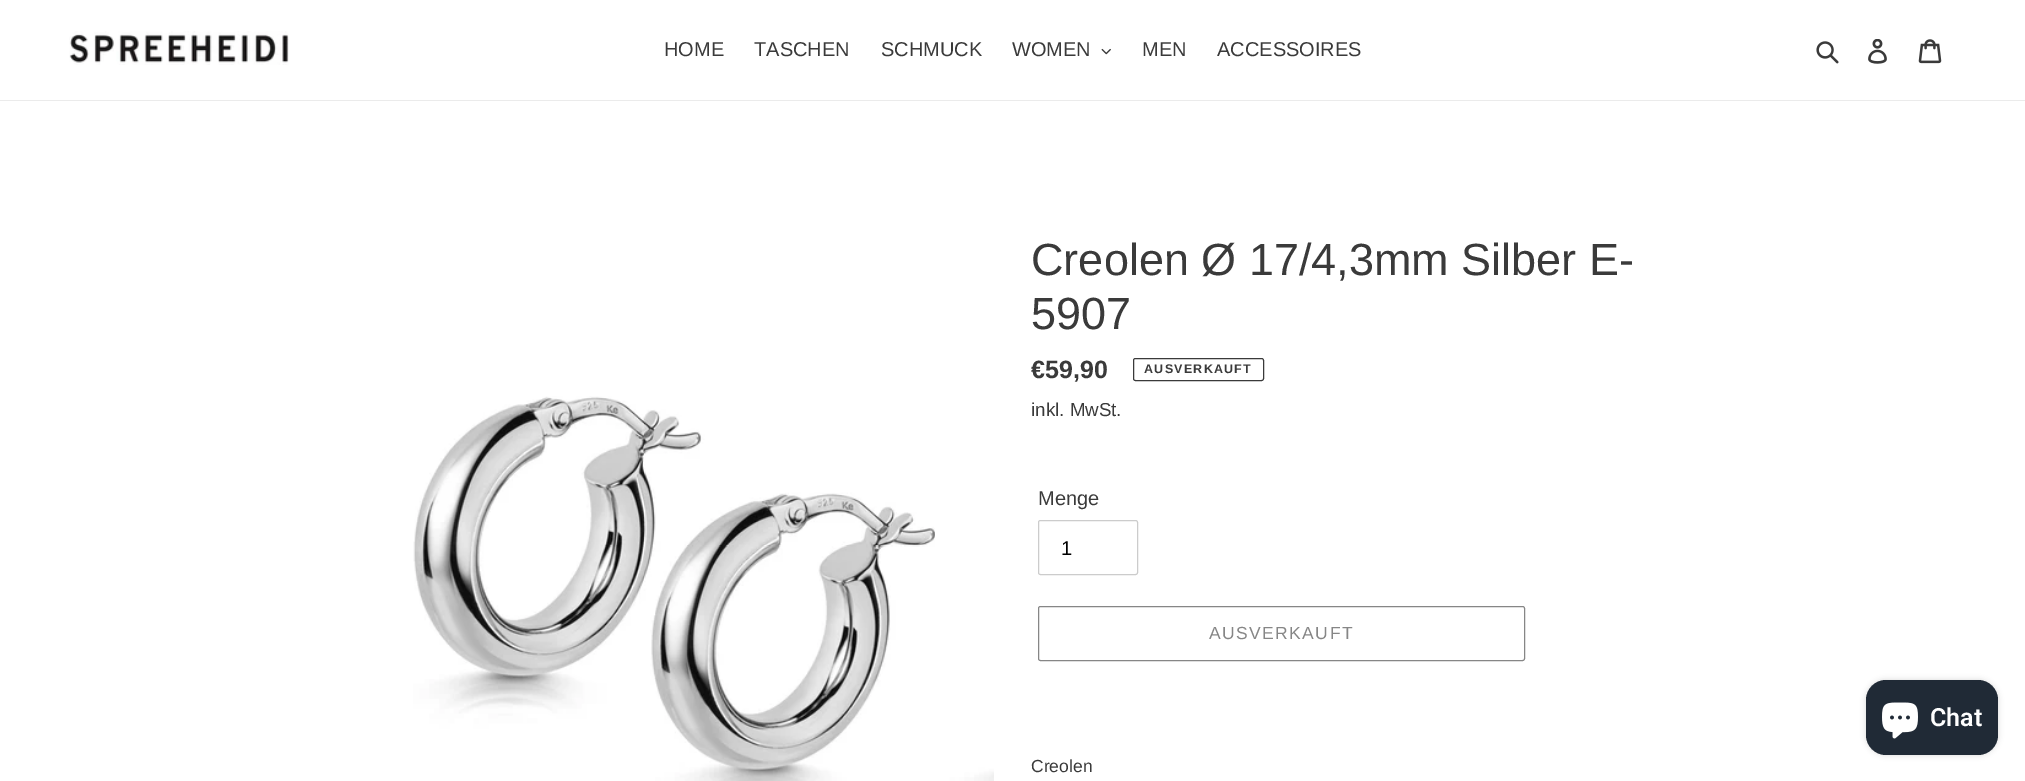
%!PS
<< /PageSize [2025 781] /PageUsesTransparency true >> setpagedevice
/alpha { dup .setfillconstantalpha .setstrokeconstantalpha } def
/roundrect { 5 dict begin { /r /h /w /y /x } { exch def } forall
  x r add y moveto x w add y 2 copy h add r arct x w add y h add x 1 index r arct
  x y h add x y r arct x y 2 copy exch w add exch r arct closepath end } def
/shadow { 12 dict begin { /a /b /q /h /w /y /x } { exch def } forall gsave /was 0 def
  9 -2 -9 { dup b mul 4 div /e exch def 1 sub .425 mul 2.718 exch exp 1 add a .99 .min exch div /now exch def
    1 1 now sub 1 was sub div sub alpha /was now def
    w h .min e 2 mul add 0 gt { x e sub y e sub w e 2 mul add h e 2 mul add
      q e add b .6 mul add w h .min 2 div e add .min 0 .max roundrect fill } if } for grestore end } def
/picture { 5 dict begin { /h /w /y /x /name } { exch def } forall
  gsave x y translate w h scale
  w h 8 [w 0 0 h 0 0] name (r) file false 3 colorimage grestore end } def
0 .pushpdf14devicefilter
0 781 translate 1 -1 scale
4 setmiterlimit
1 setgray
0 0 2025 781 rectfill
0.922 setgray
0 100 2025 1 rectfill
(img1.rgb) 69 31 220 34 picture
/LiberationSans-Regular [20 0 0 -20 0 0] selectfont
0.227 setgray
664 56 moveto (HOME) show
754 56 moveto (TASCHEN) show
881 56 moveto (SCHMUCK) show
1012 56 moveto (WOMEN) show
(img2.rgb) 1101 48 10 7 picture
1142 56 moveto (MEN) show
1217 56 moveto (ACCESSOIRES) show
(img3.rgb) 1816 41 23 23 picture
(img4.rgb) 1868 39 19 25 picture
(img5.rgb) 1918 39 24 25 picture
(img6.rgb) 413 396 581 385 picture
/LiberationSans-Regular [45 0 0 -45 0 0] selectfont
1031 275 moveto (Creolen Ø 17/4,3mm Silber E-) show
1031 329 moveto (5907) show
/LiberationSans-Bold [25 0 0 -25 0 0] selectfont
1031 378 moveto (€59,90) show
1133.5 358.5 130 22 2 roundrect stroke
/LiberationSans-Bold [12.5 0 0 -12.5 0 0] selectfont
1144 373 moveto 1.25 0 (AUSVERKAUFT) ashow
/LiberationSans-Regular [18.75 0 0 -18.75 0 0] selectfont
1031 416 moveto (inkl. MwSt.) show
/LiberationSans-Regular [20 0 0 -20 0 0] selectfont
1038 505 moveto (Menge) show
0.8 setgray
1038.5 520.5 99 54 2 roundrect stroke
0 setgray
1061 555 moveto (1) show
0.525 setgray
1038.5 606.5 486 54 2 roundrect stroke
/LiberationSans-Regular [17.5 0 0 -17.5 0 0] selectfont
1209 639 moveto 1.4 0 (AUSVERKAUFT) ashow
0.227 setgray
1031 772 moveto (Creolen) show
0 setgray
1866 680 132 75 20 3 0.15 shadow
0.125 0.165 0.212 setrgbcolor
1866 680 132 75 20 roundrect fill
(img7.rgb) 1882 702 36 37 picture
/Roboto-SemiBold [25 0 0 -25 0 0] selectfont
1 setgray
1930 726 moveto (Chat) show
.poppdf14devicefilter showpage
